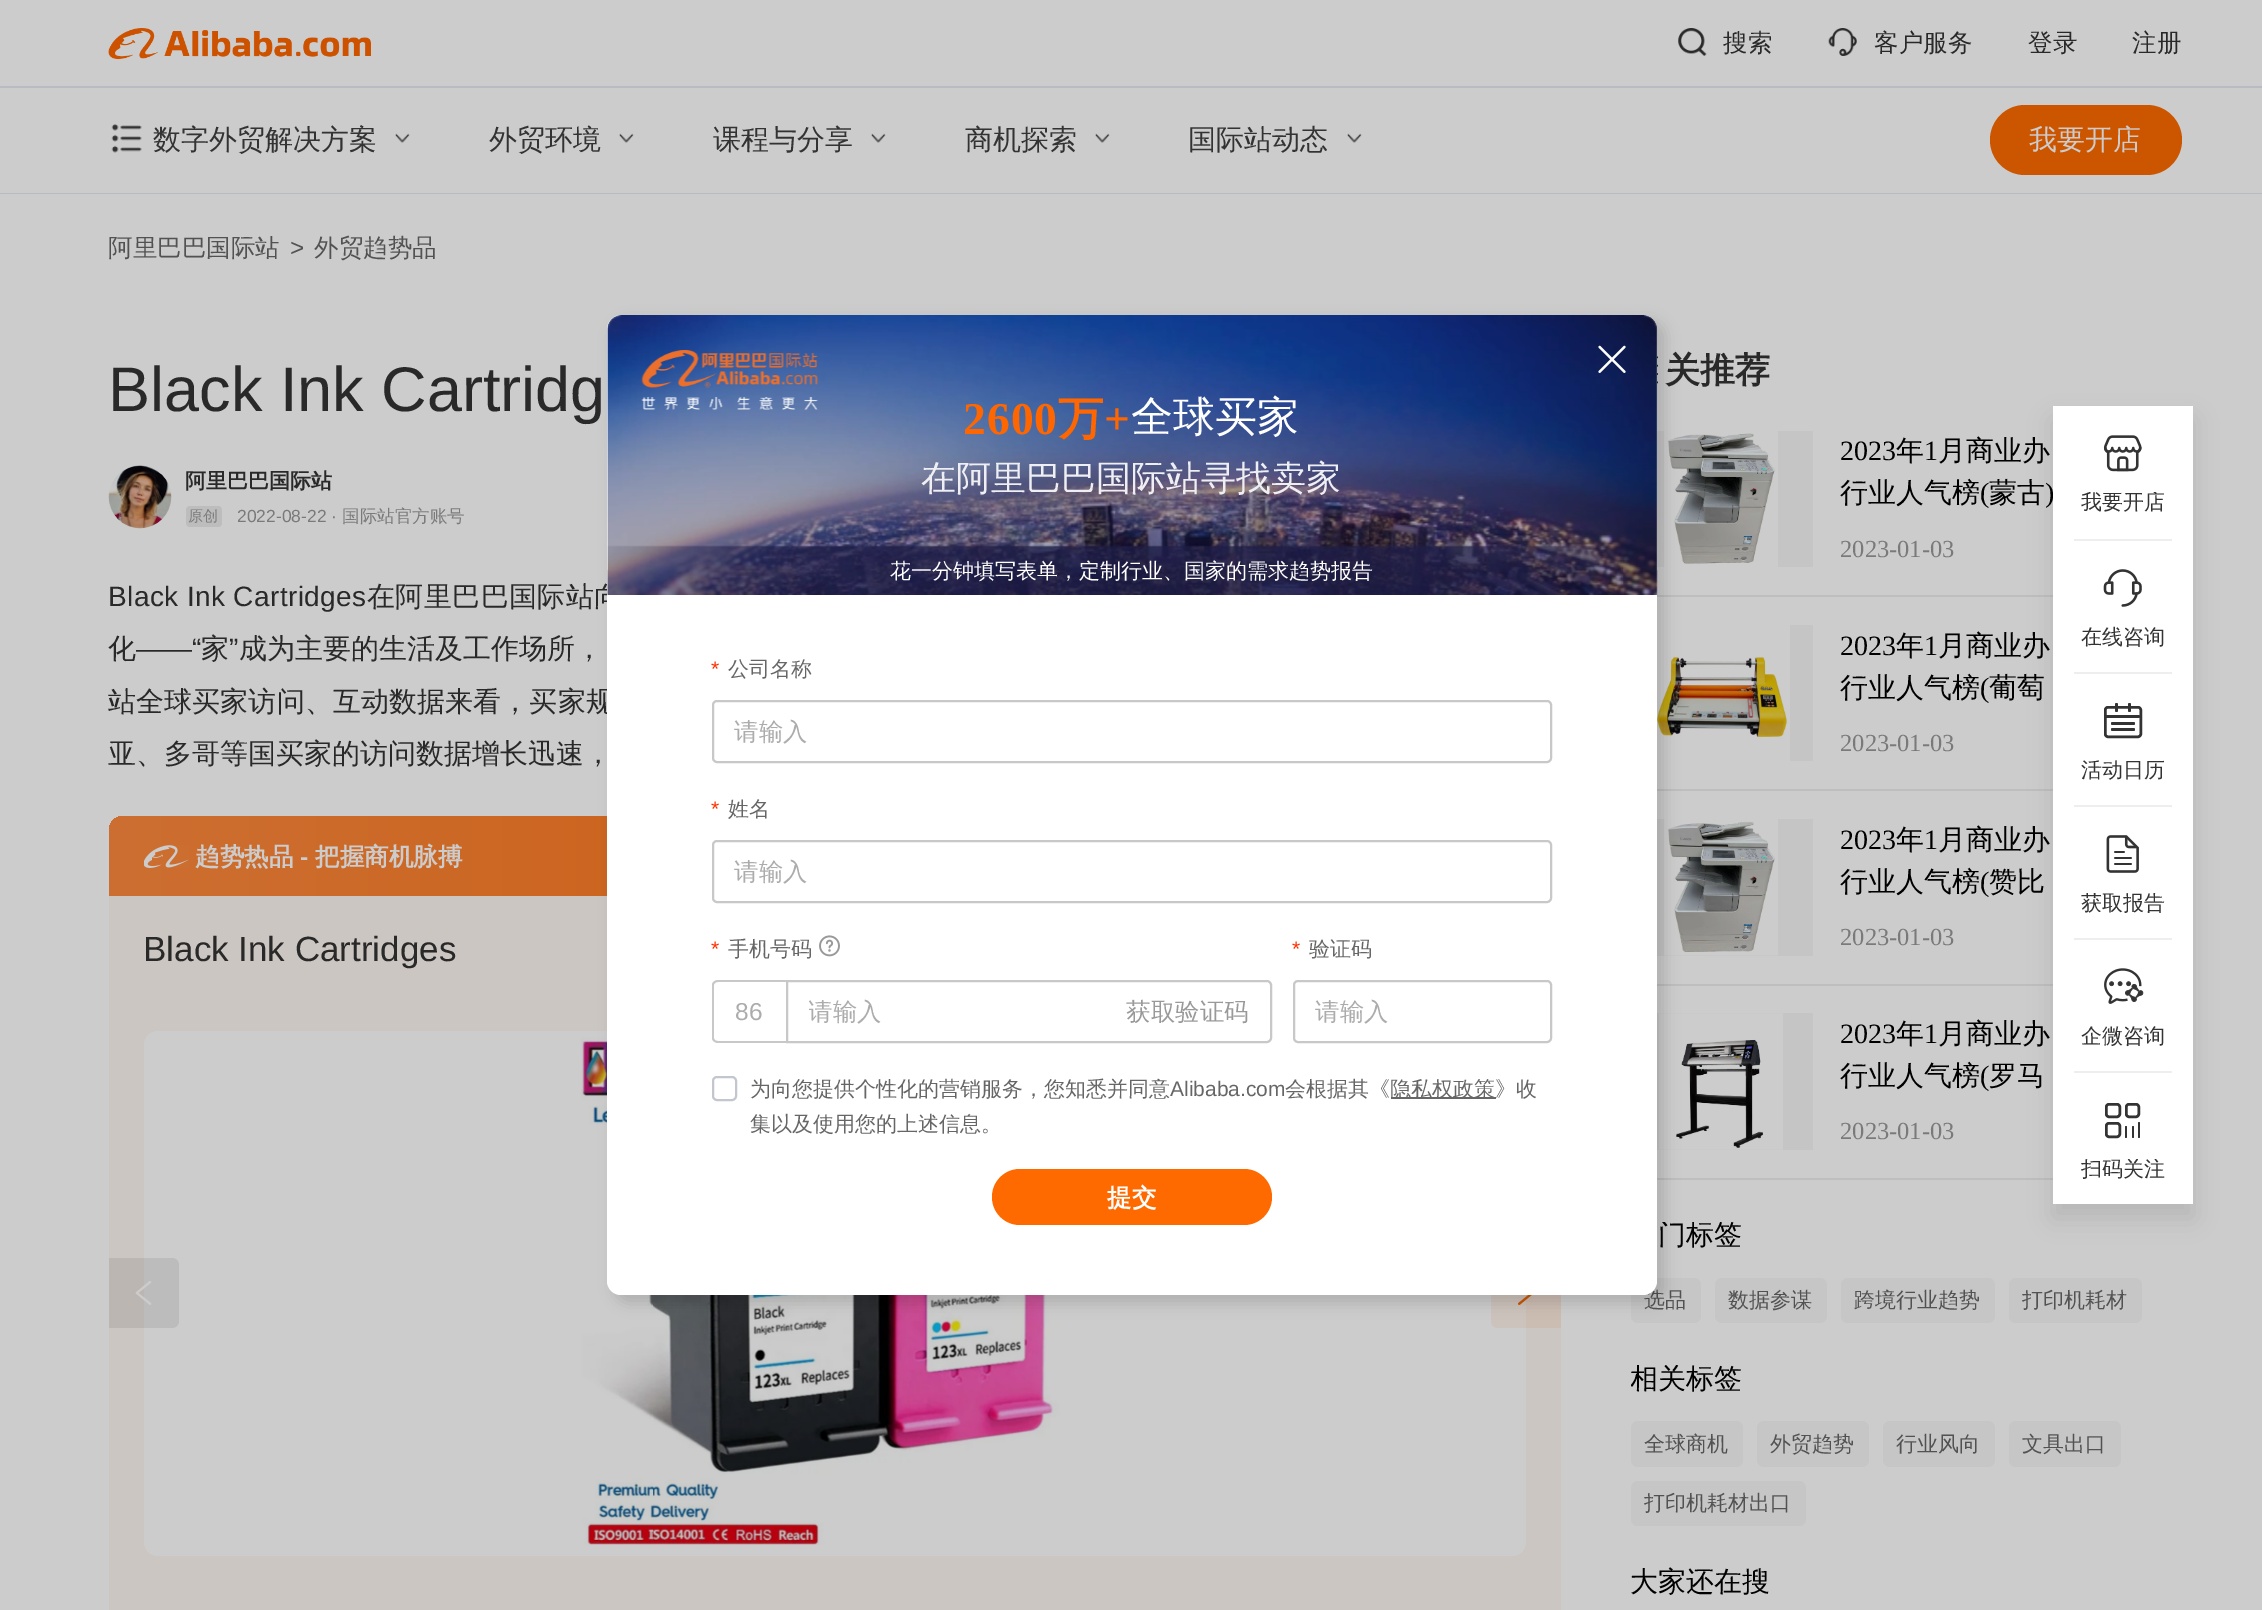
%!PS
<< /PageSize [2262 1610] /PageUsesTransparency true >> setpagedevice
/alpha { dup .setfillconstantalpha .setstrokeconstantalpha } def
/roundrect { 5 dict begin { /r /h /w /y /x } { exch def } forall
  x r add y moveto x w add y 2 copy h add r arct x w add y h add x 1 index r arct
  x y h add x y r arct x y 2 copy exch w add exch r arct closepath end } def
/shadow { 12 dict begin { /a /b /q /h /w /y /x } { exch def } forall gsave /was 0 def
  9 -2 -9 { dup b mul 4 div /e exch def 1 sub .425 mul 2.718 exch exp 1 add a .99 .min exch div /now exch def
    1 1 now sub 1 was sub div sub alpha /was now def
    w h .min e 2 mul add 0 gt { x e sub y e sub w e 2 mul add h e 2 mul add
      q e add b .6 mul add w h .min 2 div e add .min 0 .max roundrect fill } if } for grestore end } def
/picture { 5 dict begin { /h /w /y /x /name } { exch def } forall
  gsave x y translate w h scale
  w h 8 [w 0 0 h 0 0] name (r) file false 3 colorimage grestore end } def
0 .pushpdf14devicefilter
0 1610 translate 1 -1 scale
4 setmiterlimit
0.8 setgray
0 0 2262 1610 rectfill
0.722 0.737 0.761 setrgbcolor
0 86 2262 2 rectfill
(img1.rgb) 108 28 263 32 picture
(img2.rgb) 1678 28 29 28 picture
/WenQuanYiZenHei-Medium [24.5 0 0 -24.5 0 0] selectfont
0.161 setgray
1723 51 moveto (搜索) show
(img3.rgb) 1828 28 29 28 picture
1874 51 moveto (客户服务) show
2028 51 moveto (登录) show
2132 51 moveto (注册) show
0.722 0.737 0.761 setrgbcolor
0 193 2262 1 rectfill
(img4.rgb) 111 124 31 29 picture
/WenQuanYiZenHei-Medium [28 0 0 -28 0 0] selectfont
0.2 setgray
153 149 moveto (数字外贸解决方案) show
(img5.rgb) 395 133 15 10 picture
489 149 moveto (外贸环境) show
(img6.rgb) 619 133 15 10 picture
713 149 moveto (课程与分享) show
(img5.rgb) 871 133 15 10 picture
965 149 moveto (商机探索) show
(img5.rgb) 1095 133 15 10 picture
1188 149 moveto (国际站动态) show
(img5.rgb) 1347 133 15 10 picture
0.8 0.333 0 setrgbcolor
1990 105 192 70 35 roundrect fill
0.8 setgray
2029 149 moveto (我要开店) show
/WenQuanYiZenHei-Medium [24.5 0 0 -24.5 0 0] selectfont
0.322 setgray
108 256 moveto (阿里巴巴国际站) show
/LiberationSans-Regular [24.5 0 0 -24.5 0 0] selectfont
290 256 moveto (>) show
/WenQuanYiZenHei-Medium [24.5 0 0 -24.5 0 0] selectfont
314 256 moveto (外贸趋势品) show
/WenQuanYiZenHei-Bold [35 0 0 -35 0 0] selectfont
0.161 setgray
1665 382 moveto (关推荐) show
0.773 setgray
1657 431 156 136 rectfill
(img7.rgb) 1664 431 114 136 picture
/LiberationSerif-Regular [28 0 0 -28 0 0] selectfont
0 setgray
1840 460 moveto (2023) show
/WenQuanYiZenHei-Medium [28 0 0 -28 0 0] selectfont
1896 460 moveto (年) show
/LiberationSerif-Regular [28 0 0 -28 0 0] selectfont
1924 460 moveto (1) show
/WenQuanYiZenHei-Medium [28 0 0 -28 0 0] selectfont
1938 460 moveto (月商业办) show
1840 502 moveto (行业人气榜) show
/LiberationSerif-Regular [28 0 0 -28 0 0] selectfont
1980 502 moveto (\() show
/WenQuanYiZenHei-Medium [28 0 0 -28 0 0] selectfont
1989 502 moveto (蒙古) show
/LiberationSerif-Regular [28 0 0 -28 0 0] selectfont
2045 502 moveto (\)) show
/LiberationSerif-Regular [24.5 0 0 -24.5 0 0] selectfont
0.478 setgray
1840 557 moveto (2023-01-03) show
0.745 setgray
1657 595 396 2 rectfill
0.773 setgray
1790 625 23 136 rectfill
(img8.rgb) 1657 625 133 136 picture
/LiberationSerif-Regular [28 0 0 -28 0 0] selectfont
0 setgray
1840 655 moveto (2023) show
/WenQuanYiZenHei-Medium [28 0 0 -28 0 0] selectfont
1896 655 moveto (年) show
/LiberationSerif-Regular [28 0 0 -28 0 0] selectfont
1924 655 moveto (1) show
/WenQuanYiZenHei-Medium [28 0 0 -28 0 0] selectfont
1938 655 moveto (月商业办) show
1840 697 moveto (行业人气榜) show
/LiberationSerif-Regular [28 0 0 -28 0 0] selectfont
1980 697 moveto (\() show
/WenQuanYiZenHei-Medium [28 0 0 -28 0 0] selectfont
1989 697 moveto (葡萄) show
/LiberationSerif-Regular [24.5 0 0 -24.5 0 0] selectfont
0.478 setgray
1840 751 moveto (2023-01-03) show
0.745 setgray
1657 789 396 2 rectfill
0.773 setgray
1657 819 156 137 rectfill
(img9.rgb) 1664 819 114 137 picture
/LiberationSerif-Regular [28 0 0 -28 0 0] selectfont
0 setgray
1840 849 moveto (2023) show
/WenQuanYiZenHei-Medium [28 0 0 -28 0 0] selectfont
1896 849 moveto (年) show
/LiberationSerif-Regular [28 0 0 -28 0 0] selectfont
1924 849 moveto (1) show
/WenQuanYiZenHei-Medium [28 0 0 -28 0 0] selectfont
1938 849 moveto (月商业办) show
1840 891 moveto (行业人气榜) show
/LiberationSerif-Regular [28 0 0 -28 0 0] selectfont
1980 891 moveto (\() show
/WenQuanYiZenHei-Medium [28 0 0 -28 0 0] selectfont
1989 891 moveto (赞比) show
/LiberationSerif-Regular [24.5 0 0 -24.5 0 0] selectfont
0.478 setgray
1840 945 moveto (2023-01-03) show
0.745 setgray
1657 984 396 2 rectfill
0.773 setgray
1657 1013 156 137 rectfill
(img10.rgb) 1659 1013 124 137 picture
/LiberationSerif-Regular [28 0 0 -28 0 0] selectfont
0 setgray
1840 1043 moveto (2023) show
/WenQuanYiZenHei-Medium [28 0 0 -28 0 0] selectfont
1896 1043 moveto (年) show
/LiberationSerif-Regular [28 0 0 -28 0 0] selectfont
1924 1043 moveto (1) show
/WenQuanYiZenHei-Medium [28 0 0 -28 0 0] selectfont
1938 1043 moveto (月商业办) show
1840 1085 moveto (行业人气榜) show
/LiberationSerif-Regular [28 0 0 -28 0 0] selectfont
1980 1085 moveto (\() show
/WenQuanYiZenHei-Medium [28 0 0 -28 0 0] selectfont
1989 1085 moveto (罗马) show
/LiberationSerif-Regular [24.5 0 0 -24.5 0 0] selectfont
0.478 setgray
1840 1139 moveto (2023-01-03) show
0.745 setgray
1657 1178 396 2 rectfill
gsave
1631 1222 525 101 rectclip
/WenQuanYiZenHei-Medium [28 0 0 -28 0 0] selectfont
0 setgray
1658 1244 moveto (门标签) show
grestore
0.776 setgray
1631 1278 70 45 7 roundrect fill
/WenQuanYiZenHei-Medium [21 0 0 -21 0 0] selectfont
0.322 setgray
1644 1307 moveto (选品) show
0.776 setgray
1715 1278 112 45 7 roundrect fill
0.322 setgray
1728 1307 moveto (数据参谋) show
0.776 setgray
1841 1278 154 45 7 roundrect fill
0.322 setgray
1854 1307 moveto (跨境行业趋势) show
0.776 setgray
2009 1278 133 45 7 roundrect fill
0.322 setgray
2022 1307 moveto (打印机耗材) show
gsave
1631 1365 525 161 rectclip
/WenQuanYiZenHei-Medium [28 0 0 -28 0 0] selectfont
0 setgray
1630 1388 moveto (相关标签) show
grestore
0.776 setgray
1631 1421 112 46 7 roundrect fill
0.322 setgray
1644 1451 moveto (全球商机) show
0.776 setgray
1757 1421 112 46 7 roundrect fill
0.322 setgray
1770 1451 moveto (外贸趋势) show
0.776 setgray
1883 1421 112 46 7 roundrect fill
0.322 setgray
1896 1451 moveto (行业风向) show
0.776 setgray
2009 1421 112 46 7 roundrect fill
0.322 setgray
2022 1451 moveto (文具出口) show
0.776 setgray
1631 1481 175 45 7 roundrect fill
0.322 setgray
1644 1510 moveto (打印机耗材出口) show
/WenQuanYiZenHei-Medium [28 0 0 -28 0 0] selectfont
0 setgray
1630 1591 moveto (大家还在搜) show
/LiberationSans-Regular [63 0 0 -63 0 0] selectfont
0.161 setgray
108 411 moveto (Black Ink Cartridg) show
(img11.rgb) 108 465 64 64 picture
gsave
186 466 325 31 rectclip
/WenQuanYiZenHei-Bold [21 0 0 -21 0 0] selectfont
185 488 moveto (阿里巴巴国际站) show
grestore
0.741 setgray
186 506 36 21 4 roundrect fill
/WenQuanYiZenHei-Medium [15 0 0 -15 0 0] selectfont
0.478 setgray
188 521 moveto (原创) show
/LiberationSans-Regular [17.5 0 0 -17.5 0 0] selectfont
237 522 moveto (2022-08-22 ·) show
/WenQuanYiZenHei-Medium [17.5 0 0 -17.5 0 0] selectfont
342 522 moveto (国际站官方账号) show
0 setgray
2053 420 140 798 0 12 0.1 shadow
1 setgray
2053 406 140 798 rectfill
(img12.rgb) 2103 435 39 37 picture
gsave
2081 492 84 21 rectclip
/WenQuanYiZenHei-Medium [21 0 0 -21 0 0] selectfont
0.2 setgray
2081 509 moveto (我要开店) show
grestore
0.933 setgray
2074 539 98 2 rectfill
(img13.rgb) 2103 569 39 38 picture
/WenQuanYiZenHei-Medium [21 0 0 -21 0 0] selectfont
0.2 setgray
2081 644 moveto (在线咨询) show
0.933 setgray
2074 672 98 2 rectfill
0.2 setgray
2.5 setlinewidth
2105.25 707.25 35.5 29.5 2.75 roundrect stroke
2115 703 3 9 1.5 roundrect fill
2105 715 35 3 1.5 roundrect fill
2111 722 24 3 1.5 roundrect fill
2111 728 24 3 1.5 roundrect fill
2128 703 3 9 1.5 roundrect fill
2081 777 moveto (活动日历) show
0.933 setgray
2074 805 98 2 rectfill
(img14.rgb) 2106 835 33 38 picture
gsave
2081 893 84 21 rectclip
0.2 setgray
2081 910 moveto (获取报告) show
grestore
2074 938 98 2 rectfill
(img15.rgb) 2104 968 40 36 picture
0.2 setgray
2081 1043 moveto (企微咨询) show
0.933 setgray
2074 1071 98 2 rectfill
0.2 setgray
2106.25 1104.25 13.5 12.5 2.75 roundrect stroke
2106.25 1123.25 13.5 13.5 2.75 roundrect stroke
2125 1126 2 12 1 roundrect fill
2132 1126 2 12 1 roundrect fill
2138 1122 2 16 1 roundrect fill
2126.25 1104.25 12.5 12.5 2.75 roundrect stroke
gsave
2081 1159 84 21 rectclip
2081 1176 moveto (扫码关注) show
grestore
/LiberationSans-Regular [28 0 0 -28 0 0] selectfont
0.161 setgray
108 606 moveto 0.4 0 (Black Ink Cartridges) ashow
/WenQuanYiZenHei-Medium [28 0 0 -28 0 0] selectfont
367 606 moveto 0.4 0 (在阿里巴巴国际站向) ashow
108 658 moveto (化) show
/LiberationSans-Regular [28 0 0 -28 0 0] selectfont
136 658 moveto (——“) show
/WenQuanYiZenHei-Medium [28 0 0 -28 0 0] selectfont
201 658 moveto (家) show
/LiberationSans-Regular [28 0 0 -28 0 0] selectfont
229 658 moveto (”) show
/WenQuanYiZenHei-Medium [28 0 0 -28 0 0] selectfont
239 658 moveto (成为主要的生活及工作场所，) show
108 711 moveto 0.1 0 (站全球买家访问、互动数据来看，买家规) ashow
108 763 moveto (亚、多哥等国买家的访问数据增长迅速，) show
0.8 0.776 0.761 setrgbcolor
109 816 1452 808 14 roundrect fill
gsave newpath 123 816 moveto 1547 816 lineto 1554.5 816 1561 822.5 1561 830 curveto 1561 896 lineto 109 896 lineto 109 830 lineto 109 822.5 115.5 816 123 816 curveto closepath clip newpath
<< /ShadingType 2 /ColorSpace /DeviceRGB /Coords [109 856 1561 856] /Extend [true true] /Function << /FunctionType 2 /Domain [0 1] /C0 [0.8 0.435 0.196] /C1 [0.8 0.322 0] /N 1 >> >> shfill grestore
(img16.rgb) 144 845 45 23 picture
/WenQuanYiZenHei-Bold [24.5 0 0 -24.5 0 0] selectfont
0.8 setgray
195 865 moveto (趋势热品) show
/LiberationSans-Bold [24.5 0 0 -24.5 0 0] selectfont
300 865 moveto (-) show
/WenQuanYiZenHei-Bold [24.5 0 0 -24.5 0 0] selectfont
315 865 moveto (把握商机脉搏) show
/LiberationSans-Regular [35 0 0 -35 0 0] selectfont
0.161 setgray
143 961 moveto (Black Ink Cartridges) show
0.8 setgray
144 1031 1382 525 14 roundrect fill
(img17.rgb) 581 1037 488 508 picture
0.08 alpha
0 setgray
newpath 109 1258 moveto 172 1258 lineto 176 1258 179 1261 179 1265 curveto 179 1321 lineto 179 1325 176 1328 172 1328 curveto 109 1328 lineto closepath fill
1 alpha
(img18.rgb) 135 1281 17 24 picture
0.08 alpha
0.8 0.333 0 setrgbcolor
newpath 1498 1258 moveto 1561 1258 lineto 1561 1328 lineto 1498 1328 lineto 1494 1328 1491 1325 1491 1321 curveto 1491 1265 lineto 1491 1261 1494 1258 1498 1258 curveto closepath fill
1 alpha
(img19.rgb) 1518 1295 14 10 picture
0 setgray
613 320 1053 984 16 7 0.14 shadow
1 setgray
607 315 1050 980 14 roundrect fill
(img21.rgb) 607 315 1051 280 picture
(img20.rgb) 1598 345 28 28 picture
(img22.rgb) 641 350 177 60 picture
/LiberationSerif-Bold [45.5 0 0 -45.5 0 0] selectfont
1 0.4 0 setrgbcolor
963 434 moveto 1 0 (2600) ashow
/WenQuanYiZenHei-Bold [45.5 0 0 -45.5 0 0] selectfont
1058 434 moveto 1 0 (万) ashow
/LiberationSerif-Bold [45.5 0 0 -45.5 0 0] selectfont
1104 434 moveto 1 0 (+) ashow
/WenQuanYiZenHei-Medium [42 0 0 -42 0 0] selectfont
1 setgray
1131 431 moveto (全球买家) show
/WenQuanYiZenHei-Medium [35 0 0 -35 0 0] selectfont
0.937 0.937 0.953 setrgbcolor
921 490 moveto (在阿里巴巴国际站寻找卖家) show
/WenQuanYiZenHei-Medium [21 0 0 -21 0 0] selectfont
1 setgray
890 578 moveto (花一分钟填写表单，定制行业、国家的需求趋势报告) show
/LiberationSans-Regular [21 0 0 -21 0 0] selectfont
1 0.188 0 setrgbcolor
711 676 moveto (*) show
/WenQuanYiZenHei-Medium [21 0 0 -21 0 0] selectfont
0.4 setgray
728 676 moveto (公司名称) show
0.784 setgray
2 setlinewidth
713 701 838 61 4 roundrect stroke
/WenQuanYiZenHei-Medium [24.5 0 0 -24.5 0 0] selectfont
0.675 setgray
734 740 moveto (请输入) show
/LiberationSans-Regular [21 0 0 -21 0 0] selectfont
1 0.188 0 setrgbcolor
711 816 moveto (*) show
/WenQuanYiZenHei-Medium [21 0 0 -21 0 0] selectfont
0.4 setgray
728 816 moveto (姓名) show
0.784 setgray
713 841 838 61 4 roundrect stroke
/WenQuanYiZenHei-Medium [24.5 0 0 -24.5 0 0] selectfont
0.675 setgray
734 880 moveto (请输入) show
/LiberationSans-Regular [21 0 0 -21 0 0] selectfont
1 0.188 0 setrgbcolor
711 956 moveto (*) show
/WenQuanYiZenHei-Medium [21 0 0 -21 0 0] selectfont
0.4 setgray
728 956 moveto (手机号码) show
(img23.rgb) 819 935 21 22 picture
0.784 setgray
newpath 787 981 moveto 1267 981 lineto 1269 981 1271 983 1271 985 curveto 1271 1038 lineto 1271 1040 1269 1042 1267 1042 curveto 787 1042 lineto closepath stroke
gsave
809 998 297 31 rectclip
/WenQuanYiZenHei-Medium [24.5 0 0 -24.5 0 0] selectfont
0.675 setgray
808 1020 moveto (请输入) show
grestore
/WenQuanYiZenHei-Medium [24.5 0 0 -24.5 0 0] selectfont
0.6 setgray
1126 1020 moveto (获取验证码) show
/LiberationSans-Regular [21 0 0 -21 0 0] selectfont
1 0.188 0 setrgbcolor
1292 956 moveto (*) show
/WenQuanYiZenHei-Medium [21 0 0 -21 0 0] selectfont
0.4 setgray
1309 956 moveto (验证码) show
0.784 setgray
1294 981 257 61 4 roundrect stroke
/WenQuanYiZenHei-Medium [24.5 0 0 -24.5 0 0] selectfont
0.675 setgray
1315 1020 moveto (请输入) show
0.784 setgray
newpath 718 980 moveto 786 980 lineto 786 1043 lineto 718 1043 lineto 715 1043 712 1041 712 1038 curveto 712 985 lineto 712 982 715 980 718 980 curveto closepath 718 982 moveto 786 982 lineto 786 1041 lineto 718 1041 lineto 716 1041 714 1040 714 1038 curveto 714 985 lineto 714 983 716 982 718 982 curveto closepath eofill
/LiberationSans-Regular [24.5 0 0 -24.5 0 0] selectfont
0.675 setgray
735 1020 moveto (86) show
0.769 0.776 0.812 setrgbcolor
713 1077 23 23 4 roundrect stroke
/WenQuanYiZenHei-Medium [21 0 0 -21 0 0] selectfont
0.4 setgray
750 1096 moveto (为向您提供个性化的营销服务，您知悉并同意) show
/LiberationSans-Regular [21 0 0 -21 0 0] selectfont
1170 1096 moveto (Alibaba.com) show
/WenQuanYiZenHei-Medium [21 0 0 -21 0 0] selectfont
1285 1096 moveto (会根据其《) show
1391 1097 105 2 rectfill
1390 1096 moveto (隐私权政策》收) show
750 1131 moveto (集以及使用您的上述信息。) show
1 0.416 0 setrgbcolor
992 1169 280 56 28 roundrect fill
/WenQuanYiZenHei-Bold [24.5 0 0 -24.5 0 0] selectfont
1 setgray
1107 1206 moveto (提交) show
.poppdf14devicefilter showpage
